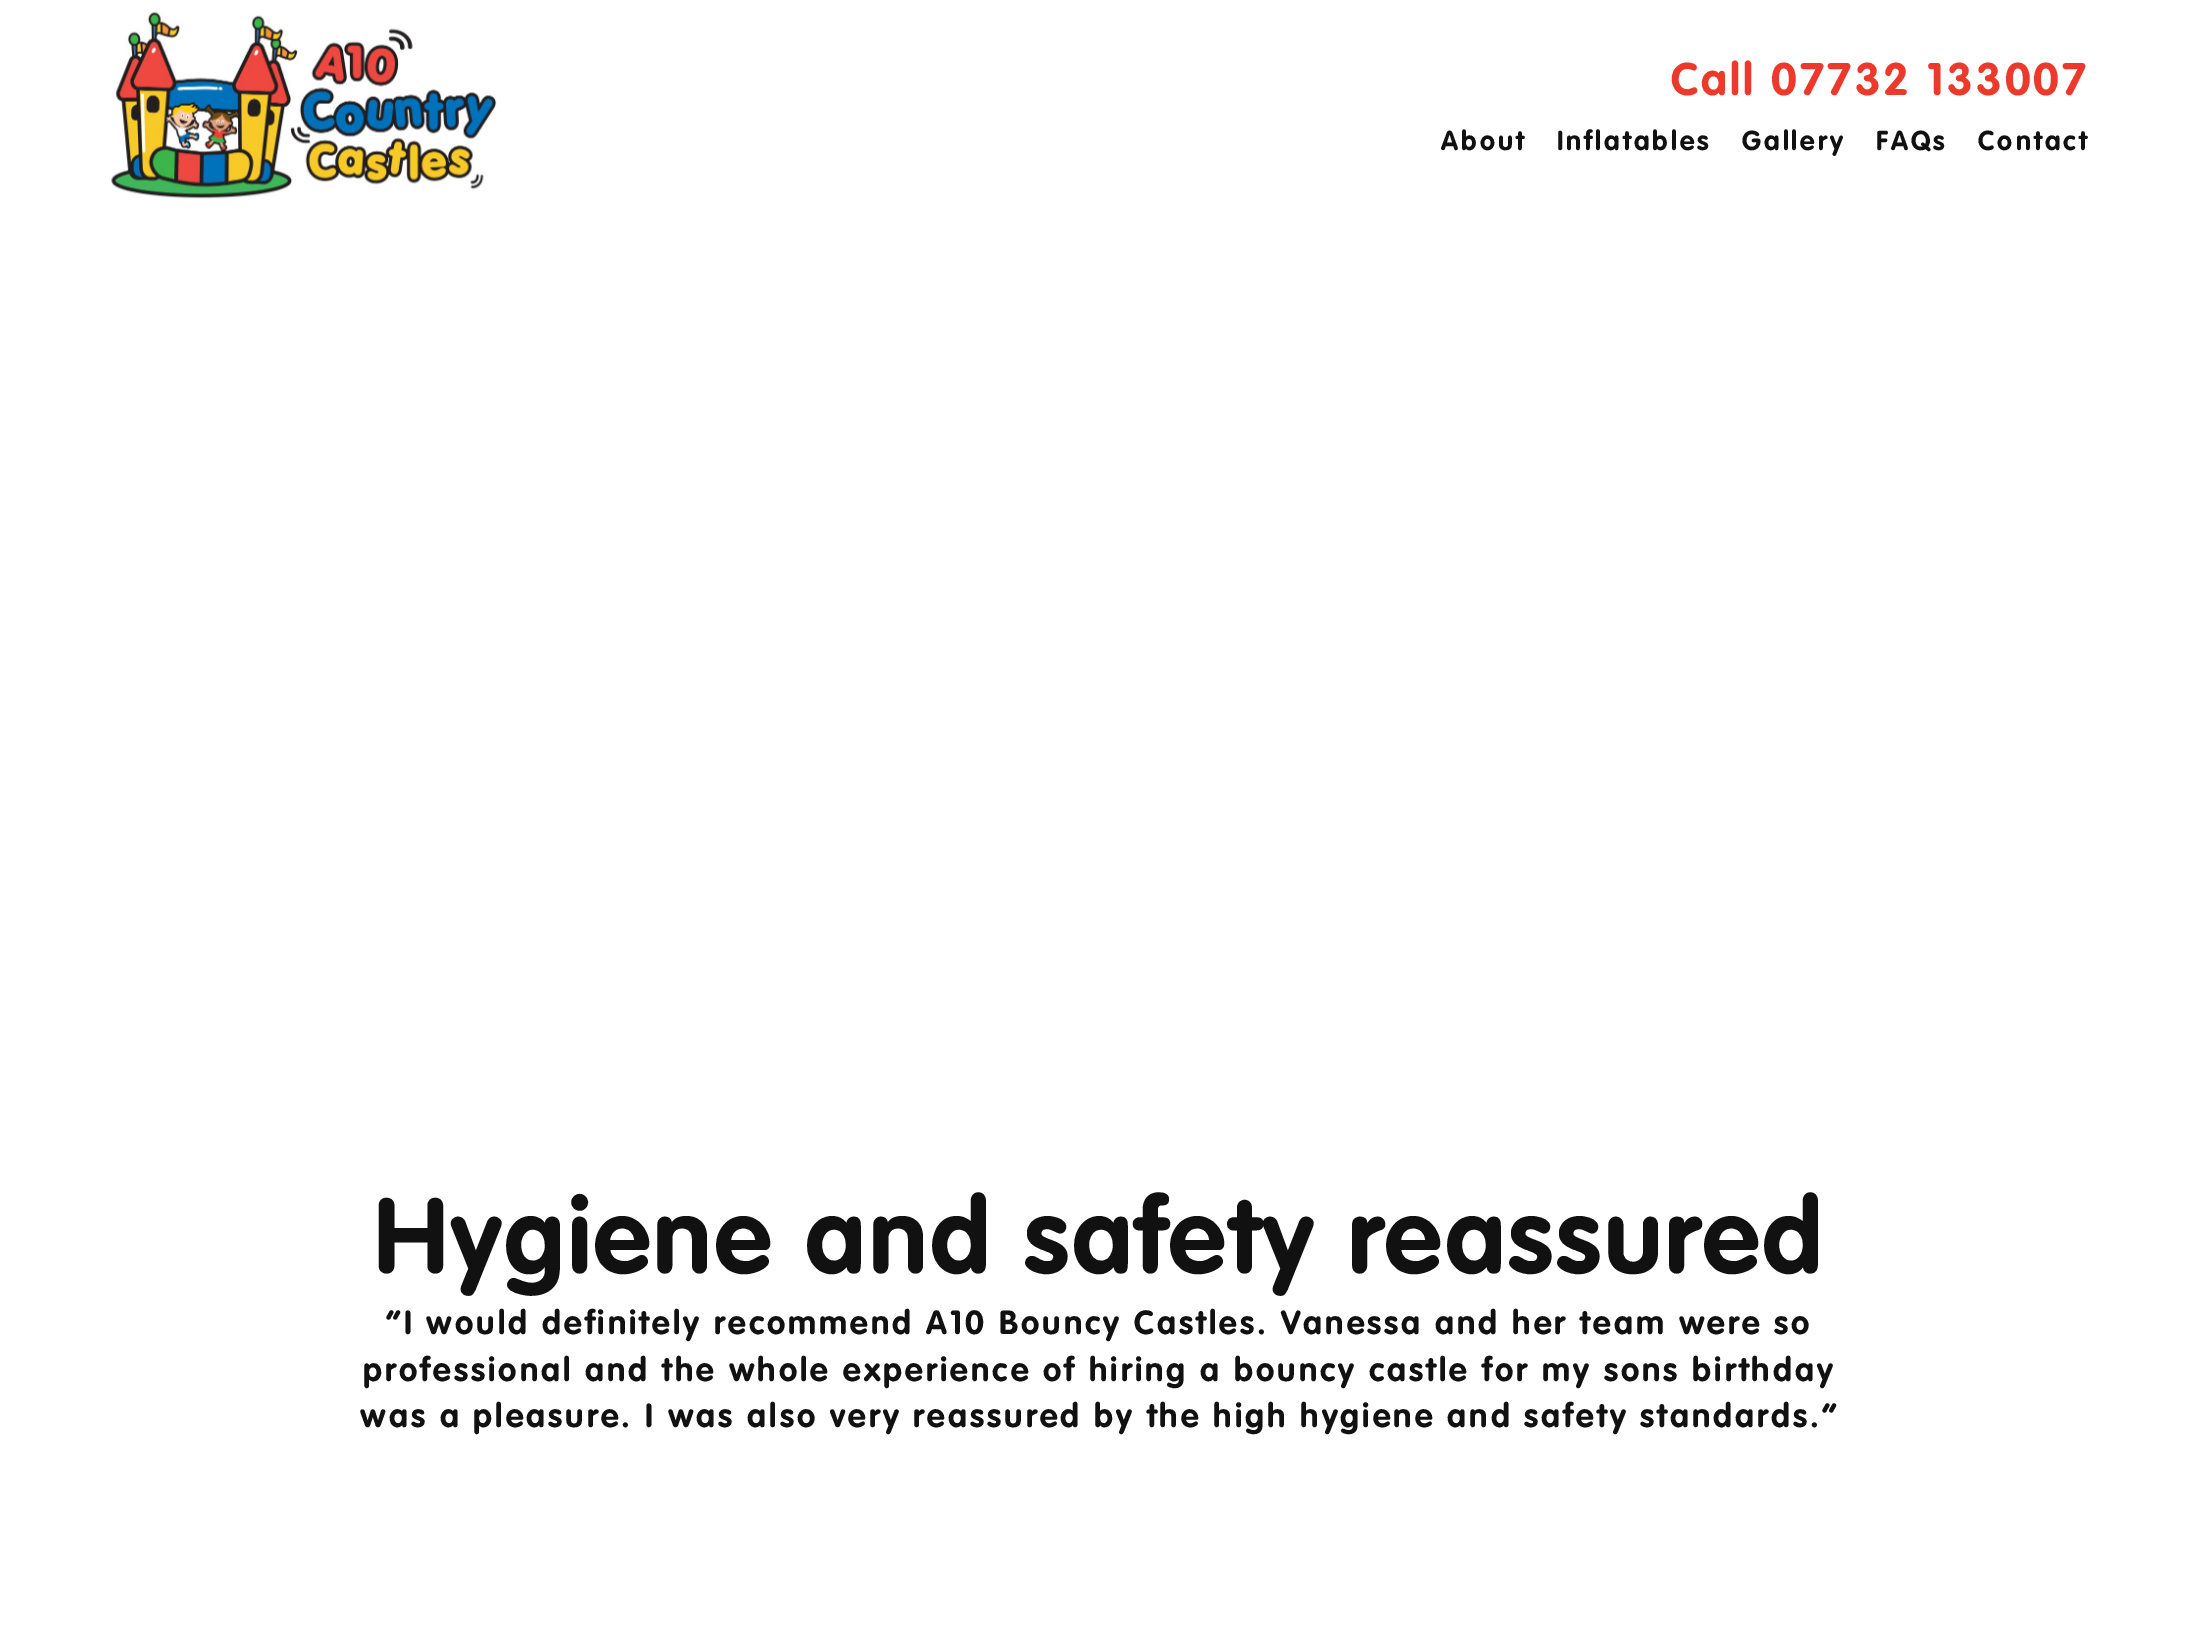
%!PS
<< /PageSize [2199 1629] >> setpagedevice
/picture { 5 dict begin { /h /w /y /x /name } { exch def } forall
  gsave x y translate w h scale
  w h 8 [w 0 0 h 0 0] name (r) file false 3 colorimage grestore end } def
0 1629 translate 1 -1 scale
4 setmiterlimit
1 setgray
0 0 2199 1629 rectfill
(img1.rgb) 111 11 386 188 picture
/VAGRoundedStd-Bold [45 0 0 -45 0 0] selectfont
0.922 0.227 0.173 setrgbcolor
1671 95 moveto 3 0 (Call 07732 133007) ashow
/VAGRoundedStd-Bold [27 0 0 -27 0 0] selectfont
0.067 setgray
1441 150 moveto 3 0 (About) ashow
1557 150 moveto 3 0 (Inflatables) ashow
1742 150 moveto 3 0 (Gallery) ashow
1876 150 moveto 3 0 (FAQs) ashow
1978 150 moveto 3 0 (Contact) ashow
/VAGRoundedStd-Bold [105 0 0 -105 0 0] selectfont
374 1273 moveto 3 0 (Hygiene and safety reassured) ashow
/VAGRoundedStd-Bold [33 0 0 -33 0 0] selectfont
386 1334 moveto 3 0 (“I would definitely recommend A10 Bouncy Castles. Vanessa and her team were so) ashow
363 1381 moveto 3 0 (professional and the whole experience of hiring a bouncy castle for my sons birthday) ashow
360 1427 moveto 3 0 (was a pleasure. I was also very reassured by the high hygiene and safety standards.”) ashow
showpage
